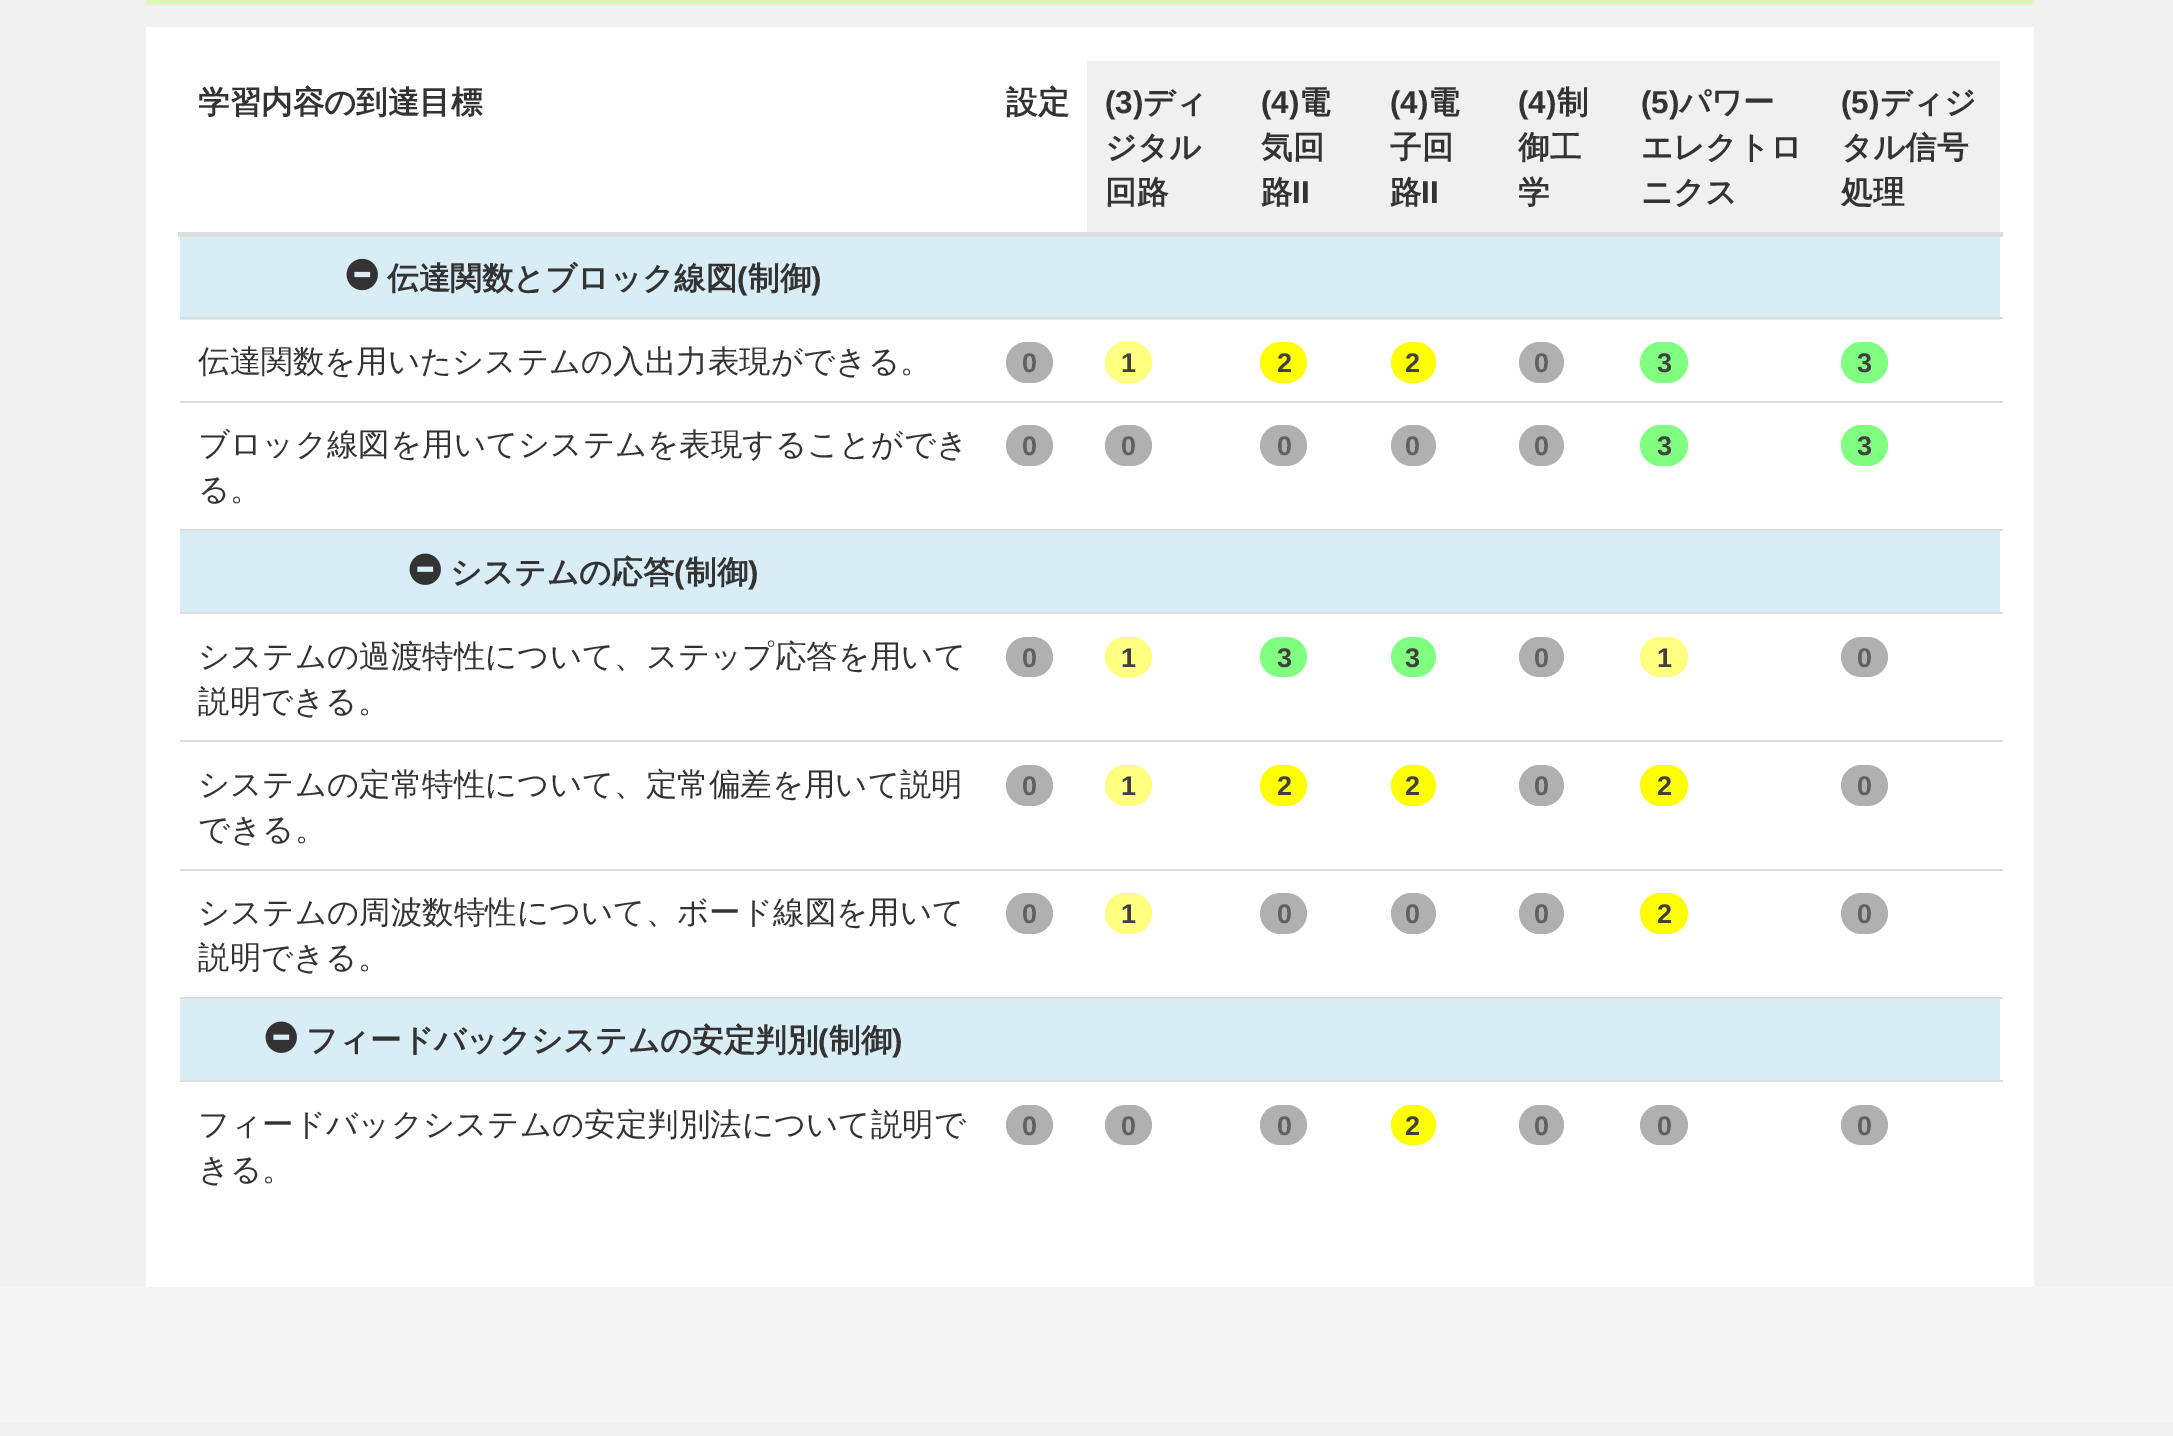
%!PS
<< /PageSize [2173 1436] >> setpagedevice
/roundrect { 5 dict begin { /r /h /w /y /x } { exch def } forall
  x r add y moveto x w add y 2 copy h add r arct x w add y h add x 1 index r arct
  x y h add x y r arct x y 2 copy exch w add exch r arct closepath end } def
/picture { 5 dict begin { /h /w /y /x /name } { exch def } forall
  gsave x y translate w h scale
  w h 8 [w 0 0 h 0 0] name (r) file false 3 colorimage grestore end } def
0 1436 translate 1 -1 scale
4 setmiterlimit
0.945 setgray
0 0 2173 1436 rectfill
0.827 1 0.647 setrgbcolor
newpath 147 -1 moveto 2033 -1 lineto 2033 4 lineto 147 4 lineto closepath gsave fill grestore
0.945 0.925 0.824 setrgbcolor
2 setlinewidth
stroke
1 setgray
146 27 1888 1260 rectfill
/WenQuanYiZenHei-Bold [31.5 0 0 -31.5 0 0] selectfont
0.2 setgray
198 113 moveto (学習内容の到達目標) show
1006 113 moveto (設定) show
0.941 setgray
1087 61 913 171 rectfill
/LiberationSans-Bold [31.5 0 0 -31.5 0 0] selectfont
0.2 setgray
1105 113 moveto (\(3\)) show
/WenQuanYiZenHei-Bold [31.5 0 0 -31.5 0 0] selectfont
1143 113 moveto (ディ) show
1105 158 moveto (ジタル) show
1105 203 moveto (回路) show
/LiberationSans-Bold [31.5 0 0 -31.5 0 0] selectfont
1261 113 moveto (\(4\)) show
/WenQuanYiZenHei-Bold [31.5 0 0 -31.5 0 0] selectfont
1299 113 moveto (電) show
1261 158 moveto (気回) show
1261 203 moveto (路) show
/LiberationSans-Bold [31.5 0 0 -31.5 0 0] selectfont
1292 203 moveto (II) show
1390 113 moveto (\(4\)) show
/WenQuanYiZenHei-Bold [31.5 0 0 -31.5 0 0] selectfont
1428 113 moveto (電) show
1390 158 moveto (子回) show
1390 203 moveto (路) show
/LiberationSans-Bold [31.5 0 0 -31.5 0 0] selectfont
1421 203 moveto (II) show
1518 113 moveto (\(4\)) show
/WenQuanYiZenHei-Bold [31.5 0 0 -31.5 0 0] selectfont
1557 113 moveto (制) show
1518 158 moveto (御工) show
1518 203 moveto (学) show
/LiberationSans-Bold [31.5 0 0 -31.5 0 0] selectfont
1641 113 moveto (\(5\)) show
/WenQuanYiZenHei-Bold [31.5 0 0 -31.5 0 0] selectfont
1679 113 moveto (パワー) show
1641 158 moveto (エレクトロ) show
1641 203 moveto (ニクス) show
0.867 setgray
178 232 1825 5 rectfill
/LiberationSans-Bold [31.5 0 0 -31.5 0 0] selectfont
0.2 setgray
1841 113 moveto (\(5\)) show
/WenQuanYiZenHei-Bold [31.5 0 0 -31.5 0 0] selectfont
1880 113 moveto (ディジ) show
1841 158 moveto (タル信号) show
1841 203 moveto (処理) show
0.851 0.929 0.969 setrgbcolor
180 237 1820 83 rectfill
(img1.rgb) 346 258 32 33 picture
0.2 setgray
387 289 moveto (伝達関数とブロック線図) show
/LiberationSans-Bold [31.5 0 0 -31.5 0 0] selectfont
737 289 moveto (\() show
/WenQuanYiZenHei-Bold [31.5 0 0 -31.5 0 0] selectfont
748 289 moveto (制御) show
/LiberationSans-Bold [31.5 0 0 -31.5 0 0] selectfont
811 289 moveto (\)) show
/WenQuanYiZenHei-Medium [31.5 0 0 -31.5 0 0] selectfont
198 372 moveto (伝達関数を用いたシステムの入出力表現ができる。) show
0.69 setgray
1006 342 47 41 20.5 roundrect fill
/LiberationSans-Bold [27 0 0 -27 0 0] selectfont
0.376 setgray
1022 372 moveto (0) show
1 1 0.502 setrgbcolor
1105 342 47 41 20.5 roundrect fill
0.251 setgray
1121 372 moveto (1) show
1 1 0 setrgbcolor
1260 342 47 41 20.5 roundrect fill
0.251 setgray
1277 372 moveto (2) show
1 1 0 setrgbcolor
1391 342 45 41 20.5 roundrect fill
0.251 setgray
1405 372 moveto (2) show
0.69 setgray
1519 342 45 41 20.5 roundrect fill
0.376 setgray
1534 372 moveto (0) show
0.502 1 0.502 setrgbcolor
1640 342 48 41 20.5 roundrect fill
0.251 setgray
1657 372 moveto (3) show
0.867 setgray
180 317 1823 2 rectfill
0.502 1 0.502 setrgbcolor
1841 342 47 41 20.5 roundrect fill
0.251 setgray
1857 372 moveto (3) show
/WenQuanYiZenHei-Medium [31.5 0 0 -31.5 0 0] selectfont
0.2 setgray
198 455 moveto (ブロック線図を用いてシステムを表現することができ) show
198 500 moveto (る。) show
0.69 setgray
1006 425 47 41 20.5 roundrect fill
/LiberationSans-Bold [27 0 0 -27 0 0] selectfont
0.376 setgray
1022 455 moveto (0) show
0.69 setgray
1105 425 47 41 20.5 roundrect fill
0.376 setgray
1121 455 moveto (0) show
0.69 setgray
1260 425 47 41 20.5 roundrect fill
0.376 setgray
1277 455 moveto (0) show
0.69 setgray
1391 425 45 41 20.5 roundrect fill
0.376 setgray
1405 455 moveto (0) show
0.69 setgray
1519 425 45 41 20.5 roundrect fill
0.376 setgray
1534 455 moveto (0) show
0.502 1 0.502 setrgbcolor
1640 425 48 41 20.5 roundrect fill
0.251 setgray
1657 455 moveto (3) show
0.867 setgray
180 401 1823 2 rectfill
0.502 1 0.502 setrgbcolor
1841 425 47 41 20.5 roundrect fill
0.251 setgray
1857 455 moveto (3) show
0.867 setgray
180 529 1823 2 rectfill
0.851 0.929 0.969 setrgbcolor
180 531 1820 81 rectfill
(img2.rgb) 409 553 32 32 picture
/WenQuanYiZenHei-Bold [31.5 0 0 -31.5 0 0] selectfont
0.2 setgray
450 583 moveto (システムの応答) show
/LiberationSans-Bold [31.5 0 0 -31.5 0 0] selectfont
674 583 moveto (\() show
/WenQuanYiZenHei-Bold [31.5 0 0 -31.5 0 0] selectfont
685 583 moveto (制御) show
/LiberationSans-Bold [31.5 0 0 -31.5 0 0] selectfont
748 583 moveto (\)) show
/WenQuanYiZenHei-Medium [31.5 0 0 -31.5 0 0] selectfont
198 667 moveto (システムの過渡特性について、ステップ応答を用いて) show
198 712 moveto (説明できる。) show
0.69 setgray
1006 637 47 40 20 roundrect fill
/LiberationSans-Bold [27 0 0 -27 0 0] selectfont
0.376 setgray
1022 667 moveto (0) show
1 1 0.502 setrgbcolor
1105 637 47 40 20 roundrect fill
0.251 setgray
1121 667 moveto (1) show
0.502 1 0.502 setrgbcolor
1260 637 47 40 20 roundrect fill
0.251 setgray
1277 667 moveto (3) show
0.502 1 0.502 setrgbcolor
1391 637 45 40 20 roundrect fill
0.251 setgray
1405 667 moveto (3) show
0.69 setgray
1519 637 45 40 20 roundrect fill
0.376 setgray
1534 667 moveto (0) show
1 1 0.502 setrgbcolor
1640 637 48 40 20 roundrect fill
0.251 setgray
1657 667 moveto (1) show
0.867 setgray
180 612 1823 2 rectfill
0.69 setgray
1841 637 47 40 20 roundrect fill
0.376 setgray
1857 667 moveto (0) show
/WenQuanYiZenHei-Medium [31.5 0 0 -31.5 0 0] selectfont
0.2 setgray
198 795 moveto (システムの定常特性について、定常偏差を用いて説明) show
198 840 moveto (できる。) show
0.69 setgray
1006 765 47 41 20.5 roundrect fill
/LiberationSans-Bold [27 0 0 -27 0 0] selectfont
0.376 setgray
1022 795 moveto (0) show
1 1 0.502 setrgbcolor
1105 765 47 41 20.5 roundrect fill
0.251 setgray
1121 795 moveto (1) show
1 1 0 setrgbcolor
1260 765 47 41 20.5 roundrect fill
0.251 setgray
1277 795 moveto (2) show
1 1 0 setrgbcolor
1391 765 45 41 20.5 roundrect fill
0.251 setgray
1405 795 moveto (2) show
0.69 setgray
1519 765 45 41 20.5 roundrect fill
0.376 setgray
1534 795 moveto (0) show
1 1 0 setrgbcolor
1640 765 48 41 20.5 roundrect fill
0.251 setgray
1657 795 moveto (2) show
0.867 setgray
180 740 1823 2 rectfill
0.69 setgray
1841 765 47 41 20.5 roundrect fill
0.376 setgray
1857 795 moveto (0) show
/WenQuanYiZenHei-Medium [31.5 0 0 -31.5 0 0] selectfont
0.2 setgray
198 923 moveto (システムの周波数特性について、ボード線図を用いて) show
198 968 moveto (説明できる。) show
0.69 setgray
1006 893 47 41 20.5 roundrect fill
/LiberationSans-Bold [27 0 0 -27 0 0] selectfont
0.376 setgray
1022 923 moveto (0) show
1 1 0.502 setrgbcolor
1105 893 47 41 20.5 roundrect fill
0.251 setgray
1121 923 moveto (1) show
0.69 setgray
1260 893 47 41 20.5 roundrect fill
0.376 setgray
1277 923 moveto (0) show
0.69 setgray
1391 893 45 41 20.5 roundrect fill
0.376 setgray
1405 923 moveto (0) show
0.69 setgray
1519 893 45 41 20.5 roundrect fill
0.376 setgray
1534 923 moveto (0) show
1 1 0 setrgbcolor
1640 893 48 41 20.5 roundrect fill
0.251 setgray
1657 923 moveto (2) show
0.867 setgray
180 869 1823 2 rectfill
0.69 setgray
1841 893 47 41 20.5 roundrect fill
0.376 setgray
1857 923 moveto (0) show
0.867 setgray
180 997 1823 2 rectfill
0.851 0.929 0.969 setrgbcolor
180 999 1820 81 rectfill
(img2.rgb) 265 1021 32 32 picture
/WenQuanYiZenHei-Bold [31.5 0 0 -31.5 0 0] selectfont
0.2 setgray
306 1051 moveto (フィードバックシステムの安定判別) show
/LiberationSans-Bold [31.5 0 0 -31.5 0 0] selectfont
818 1051 moveto (\() show
/WenQuanYiZenHei-Bold [31.5 0 0 -31.5 0 0] selectfont
829 1051 moveto (制御) show
/LiberationSans-Bold [31.5 0 0 -31.5 0 0] selectfont
892 1051 moveto (\)) show
/WenQuanYiZenHei-Medium [31.5 0 0 -31.5 0 0] selectfont
198 1135 moveto (フィードバックシステムの安定判別法について説明で) show
198 1180 moveto (きる。) show
0.69 setgray
1006 1105 47 40 20 roundrect fill
/LiberationSans-Bold [27 0 0 -27 0 0] selectfont
0.376 setgray
1022 1135 moveto (0) show
0.69 setgray
1105 1105 47 40 20 roundrect fill
0.376 setgray
1121 1135 moveto (0) show
0.69 setgray
1260 1105 47 40 20 roundrect fill
0.376 setgray
1277 1135 moveto (0) show
1 1 0 setrgbcolor
1391 1105 45 40 20 roundrect fill
0.251 setgray
1405 1135 moveto (2) show
0.69 setgray
1519 1105 45 40 20 roundrect fill
0.376 setgray
1534 1135 moveto (0) show
0.69 setgray
1640 1105 48 40 20 roundrect fill
0.376 setgray
1657 1135 moveto (0) show
0.867 setgray
180 1080 1823 2 rectfill
0.69 setgray
1841 1105 47 40 20 roundrect fill
0.376 setgray
1857 1135 moveto (0) show
0.961 setgray
0 1287 2173 135 rectfill
showpage
